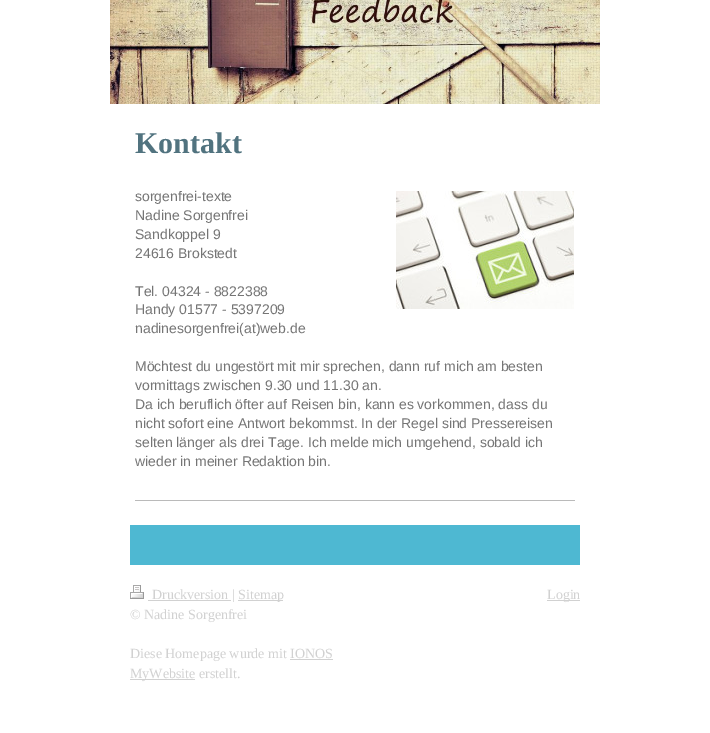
%!PS
<< /PageSize [710 733] >> setpagedevice
/picture { 5 dict begin { /h /w /y /x /name } { exch def } forall
  gsave x y translate w h scale
  w h 8 [w 0 0 h 0 0] name (r) file false 3 colorimage grestore end } def
0 733 translate 1 -1 scale
4 setmiterlimit
1 setgray
0 0 710 733 rectfill
(img1.rgb) 110 0 490 104 picture
(img2.rgb) 110 0 490 104 picture
/LiberationSerif-Bold [30 0 0 -30 0 0] selectfont
0.318 0.451 0.498 setrgbcolor
135 153 moveto (Kontakt) show
/LiberationSans-Regular [14 0 0 -14 0 0] selectfont
0.459 setgray
135 201 moveto (sorgenfrei-texte) show
135 220 moveto (Nadine Sorgenfrei) show
135 239 moveto (Sandkoppel 9) show
135 258 moveto (24616 Brokstedt) show
135 296 moveto (Tel. 04324 - 8822388) show
135 314 moveto (Handy 01577 - 5397209) show
135 333 moveto (nadinesorgenfrei\(at\)web.de) show
135 371 moveto (Möchtest du ungestört mit mir sprechen, dann ruf mich am besten) show
135 390 moveto (vormittags zwischen 9.30 und 11.30 an.) show
135 409 moveto (Da ich beruflich öfter auf Reisen bin, kann es vorkommen, dass du) show
135 428 moveto (nicht sofort eine Antwort bekommst. In der Regel sind Pressereisen) show
135 447 moveto (selten länger als drei Tage. Ich melde mich umgehend, sobald ich) show
135 466 moveto (wieder in meiner Redaktion bin.) show
(img3.rgb) 396 191 178 118 picture
0.729 setgray
135 500 440 1 rectfill
0.306 0.722 0.824 setrgbcolor
130 525 450 40 rectfill
(img4.rgb) 130 585 14 14 picture
0.82 setgray
148 600 83 1 rectfill
/LiberationSerif-Regular [14 0 0 -14 0 0] selectfont
152 599 moveto (Druckversion |) show
238 600 45 1 rectfill
238 599 moveto (Sitemap) show
130 619 moveto (© Nadine Sorgenfrei) show
130 658 moveto (Diese Homepage wurde mit IONOS) show
130 679 65 1 rectfill
130 678 moveto (MyWebsite erstellt.) show
290 659 43 1 rectfill
547 600 33 1 rectfill
547 599 moveto (Login) show
showpage
